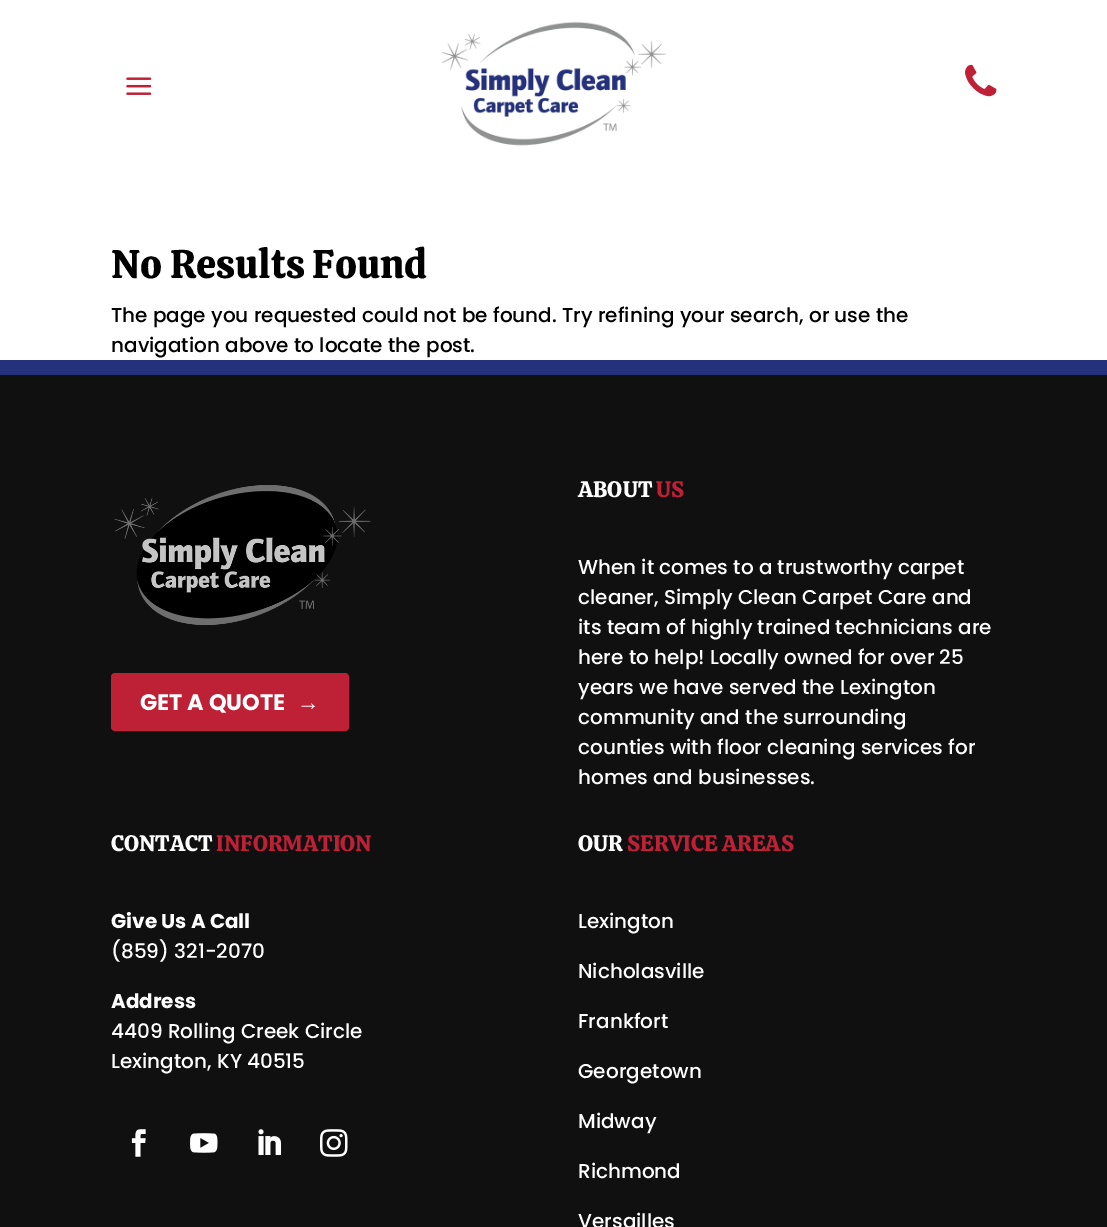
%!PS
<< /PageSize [1107 1227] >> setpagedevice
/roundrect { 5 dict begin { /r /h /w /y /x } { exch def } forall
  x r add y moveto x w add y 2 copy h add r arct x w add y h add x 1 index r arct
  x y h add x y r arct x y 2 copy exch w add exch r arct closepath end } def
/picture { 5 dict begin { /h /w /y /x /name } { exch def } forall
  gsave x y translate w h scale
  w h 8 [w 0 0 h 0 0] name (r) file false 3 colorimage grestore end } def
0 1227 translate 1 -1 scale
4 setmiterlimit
1 setgray
0 0 1107 1227 rectfill
(img1.rgb) 126 77 26 18 picture
(img2.rgb) 441 21 225 125 picture
(img3.rgb) 965 64 32 33 picture
/Calistoga-Regular [40 0 0 -40 0 0] selectfont
0 setgray
111 278 moveto (No Results Found) show
/Poppins-Medium [20 0 0 -20 0 0] selectfont
111 322 moveto (The page you requested could not be found. Try refining your search, or use the) show
111 352 moveto (navigation above to locate the post.) show
0.063 setgray
0 375 1107 852 rectfill
0.145 0.196 0.482 setrgbcolor
0 360 1107 15 rectfill
(img4.rgb) 114 485 257 140 picture
0.745 0.125 0.212 setrgbcolor
112.5 674.5 235 55 2.5 roundrect gsave fill grestore
3 setlinewidth
stroke
/Poppins-Bold [22.5 0 0 -22.5 0 0] selectfont
1 setgray
140 710 moveto (GET A QUOTE) show
/LiberationSans-Bold [22.5 0 0 -22.5 0 0] selectfont
297 710 moveto (→) show
/Calistoga-Regular [22.5 0 0 -22.5 0 0] selectfont
578 497 moveto (ABOUT) show
0.745 0.125 0.212 setrgbcolor
656 497 moveto (US) show
/Poppins-Medium [20 0 0 -20 0 0] selectfont
1 setgray
578 574 moveto (When it comes to a trustworthy carpet) show
578 604 moveto (cleaner, Simply Clean Carpet Care and) show
578 634 moveto (its team of highly trained technicians are) show
578 664 moveto (here to help! Locally owned for over 25) show
578 694 moveto (years we have served the Lexington) show
578 724 moveto (community and the surrounding) show
578 754 moveto (counties with floor cleaning services for) show
578 784 moveto (homes and businesses.) show
/Calistoga-Regular [22.5 0 0 -22.5 0 0] selectfont
111 851 moveto (CONTACT) show
0.745 0.125 0.212 setrgbcolor
216 851 moveto (INFORMATION) show
/Poppins-Bold [20 0 0 -20 0 0] selectfont
1 setgray
111 928 moveto (Give Us A Call) show
/Poppins-Medium [20 0 0 -20 0 0] selectfont
111 958 moveto (\(859\) 321-2070) show
/Poppins-Bold [20 0 0 -20 0 0] selectfont
111 1008 moveto (Address) show
/Poppins-Medium [20 0 0 -20 0 0] selectfont
111 1038 moveto (4409 Rolling Creek Circle) show
111 1068 moveto (Lexington, KY 40515) show
(img5.rgb) 131 1129 15 28 picture
(img6.rgb) 190 1133 28 20 picture
(img7.rgb) 258 1129 24 26 picture
(img8.rgb) 320 1129 28 28 picture
/Calistoga-Regular [22.5 0 0 -22.5 0 0] selectfont
578 851 moveto (OUR) show
0.745 0.125 0.212 setrgbcolor
627 851 moveto (SERVICE AREAS) show
/Poppins-Medium [20 0 0 -20 0 0] selectfont
1 setgray
578 928 moveto (Lexington) show
578 978 moveto (Nicholasville) show
578 1028 moveto (Frankfort) show
578 1078 moveto (Georgetown) show
578 1128 moveto (Midway) show
578 1178 moveto (Richmond) show
578 1228 moveto (Versailles) show
showpage
